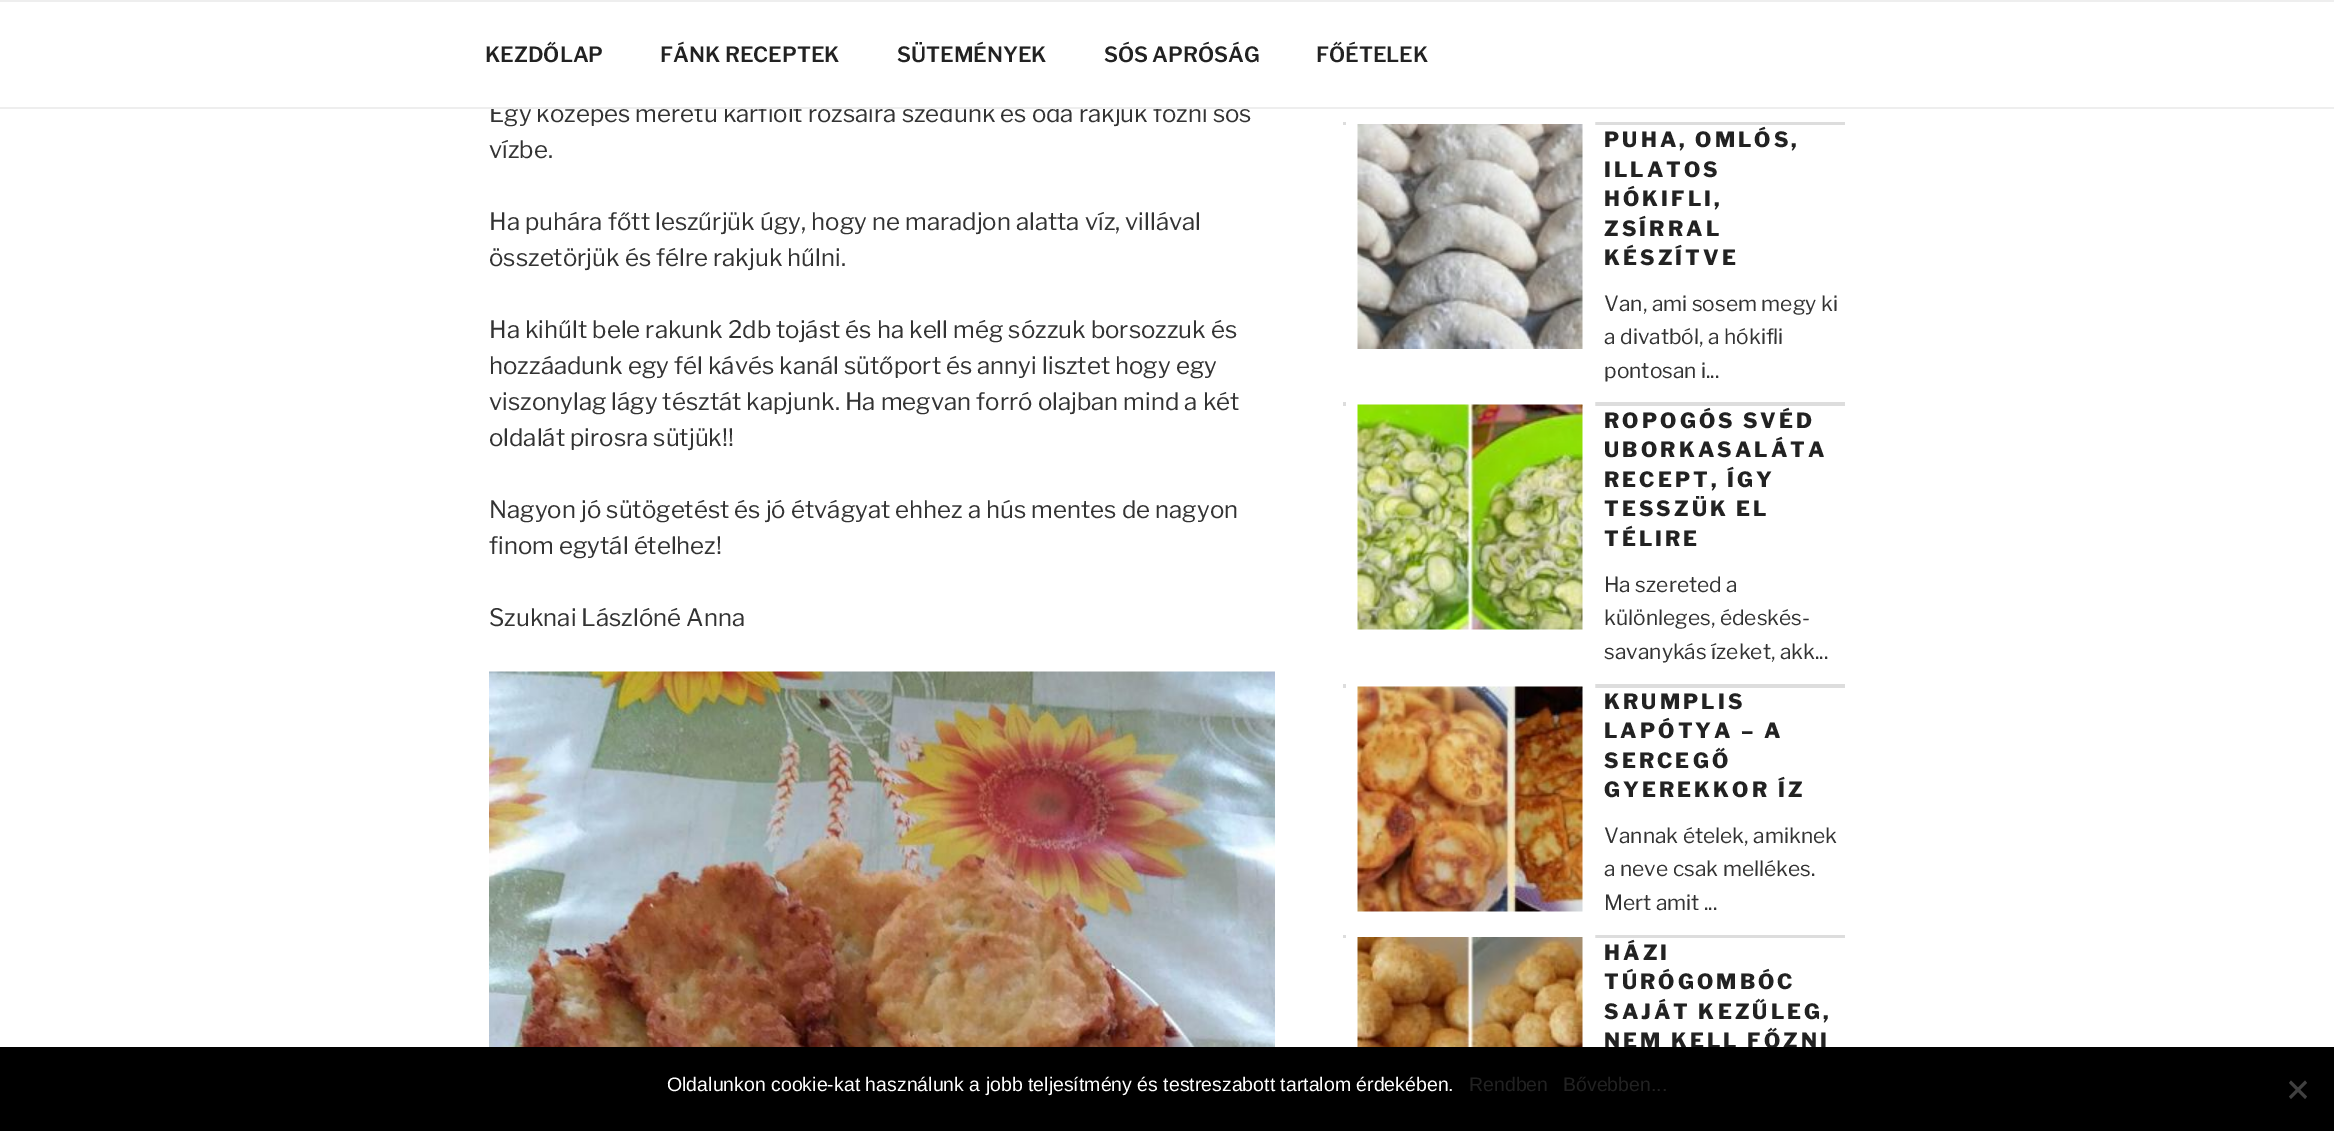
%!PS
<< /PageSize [2334 1131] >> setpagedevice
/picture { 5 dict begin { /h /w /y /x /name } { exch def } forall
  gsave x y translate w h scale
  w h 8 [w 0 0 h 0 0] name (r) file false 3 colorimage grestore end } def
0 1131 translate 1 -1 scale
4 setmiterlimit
1 setgray
0 0 2334 1131 rectfill
/LibreFranklin-Regular [24 0 0 -24 0 0] selectfont
0.2 setgray
489 122 moveto (Egy közepes méretű karfiolt rózsáira szedünk és oda rakjuk főzni sós) show
1 setgray
491 103 745 4 rectfill
0.933 setgray
0 0 2334 2 rectfill
0 107 2334 2 rectfill
/LibreFranklin-SemiBold [21 0 0 -21 0 0] selectfont
0.133 setgray
485 62 moveto (KEZDŐLAP) show
660 62 moveto (FÁNK RECEPTEK) show
897 62 moveto (SÜTEMÉNYEK) show
1104 62 moveto (SÓS APRÓSÁG) show
1316 62 moveto (FŐÉTELEK) show
/LibreFranklin-Regular [24 0 0 -24 0 0] selectfont
0.2 setgray
489 158 moveto (vízbe.) show
489 230 moveto (Ha puhára főtt leszűrjük úgy, hogy ne maradjon alatta víz, villával) show
489 266 moveto (összetörjük és félre rakjuk hűlni.) show
489 338 moveto (Ha kihűlt bele rakunk 2db tojást és ha kell még sózzuk borsozzuk és) show
489 374 moveto (hozzáadunk egy fél kávés kanál sütőport és annyi lisztet hogy egy) show
489 410 moveto (viszonylag lágy tésztát kapjunk. Ha megvan forró olajban mind a két) show
489 446 moveto (oldalát pirosra sütjük!!) show
489 518 moveto (Nagyon jó sütögetést és jó étvágyat ehhez a hús mentes de nagyon) show
489 554 moveto (finom egytál ételhez!) show
489 626 moveto (Szuknai Lászlóné Anna) show
(img1.rgb) 489 671 786 376 picture
0.867 setgray
1343 122 502 3 rectfill
1343 402 502 4 rectfill
1 setgray
12 setlinewidth
1352 119 237 237 rectstroke
(img2.rgb) 1357 124 226 225 picture
/LibreFranklin-ExtraBold [21 0 0 -21 0 0] selectfont
0.133 setgray
1604 147 moveto 3.1 0 (PUHA, OMLÓS,) ashow
1604 177 moveto 3.1 0 (ILLATOS) ashow
1604 206 moveto 3.1 0 (HÓKIFLI,) ashow
1604 236 moveto 3.1 0 (ZSÍRRAL) ashow
1604 265 moveto 3.1 0 (KÉSZÍTVE) ashow
/LibreFranklin-Regular [21 0 0 -21 0 0] selectfont
0.2 setgray
1604 311 moveto (Van, ami sosem megy ki) show
1604 344 moveto (a divatból, a hókifli) show
1604 378 moveto (pontosan i...) show
0.867 setgray
1343 684 502 4 rectfill
1 setgray
1352 399 237 237 rectstroke
(img3.rgb) 1357 404 226 226 picture
/LibreFranklin-ExtraBold [21 0 0 -21 0 0] selectfont
0.133 setgray
1604 428 moveto 3.1 0 (ROPOGÓS SVÉD) ashow
1604 457 moveto 3.1 0 (UBORKASALÁTA) ashow
1604 487 moveto 3.1 0 (RECEPT, ÍGY) ashow
1604 516 moveto 3.1 0 (TESSZÜK EL) ashow
1604 546 moveto 3.1 0 (TÉLIRE) ashow
/LibreFranklin-Regular [21 0 0 -21 0 0] selectfont
0.2 setgray
1604 592 moveto (Ha szereted a) show
1604 625 moveto (különleges, édeskés-) show
1604 659 moveto (savanykás ízeket, akk...) show
0.867 setgray
1343 935 502 3 rectfill
1 setgray
1352 681 237 237 rectstroke
(img4.rgb) 1357 686 226 226 picture
/LibreFranklin-ExtraBold [21 0 0 -21 0 0] selectfont
0.133 setgray
1604 709 moveto 3.1 0 (KRUMPLIS) ashow
1604 738 moveto 3.1 0 (LAPÓTYA – A) ashow
1604 768 moveto 3.1 0 (SERCEGŐ) ashow
1604 797 moveto 3.1 0 (GYEREKKOR ÍZ) ashow
/LibreFranklin-Regular [21 0 0 -21 0 0] selectfont
0.2 setgray
1604 843 moveto (Vannak ételek, amiknek) show
1604 876 moveto (a neve csak mellékes.) show
1604 910 moveto (Mert amit ...) show
1 setgray
1352 932 237 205 rectstroke
(img5.rgb) 1357 937 226 110 picture
/LibreFranklin-ExtraBold [21 0 0 -21 0 0] selectfont
0.133 setgray
1604 960 moveto 3.1 0 (HÁZI) ashow
1604 989 moveto 3.1 0 (TÚRÓGOMBÓC) ashow
1604 1019 moveto 3.1 0 (SAJÁT KEZŰLEG,) ashow
1604 1048 moveto 3.1 0 (NEM KELL FŐZNI) ashow
0 setgray
0 1047 2334 84 rectfill
/LiberationSans-Regular [19.5 0 0 -19.5 0 0] selectfont
1 setgray
667 1091 moveto (Oldalunkon cookie-kat használunk a jobb teljesítmény és testreszabott tartalom érdekében.) show
0.133 setgray
1469 1091 moveto (Rendben) show
1563 1091 moveto (Bővebben...) show
0.251 setgray
newpath 2305 1080.5 moveto 2307 1083 lineto 2291 1099 lineto 2289 1096.5 lineto closepath fill
newpath 2289 1083 moveto 2291 1080.5 lineto 2307 1096.5 lineto 2305 1099 lineto closepath fill
showpage
